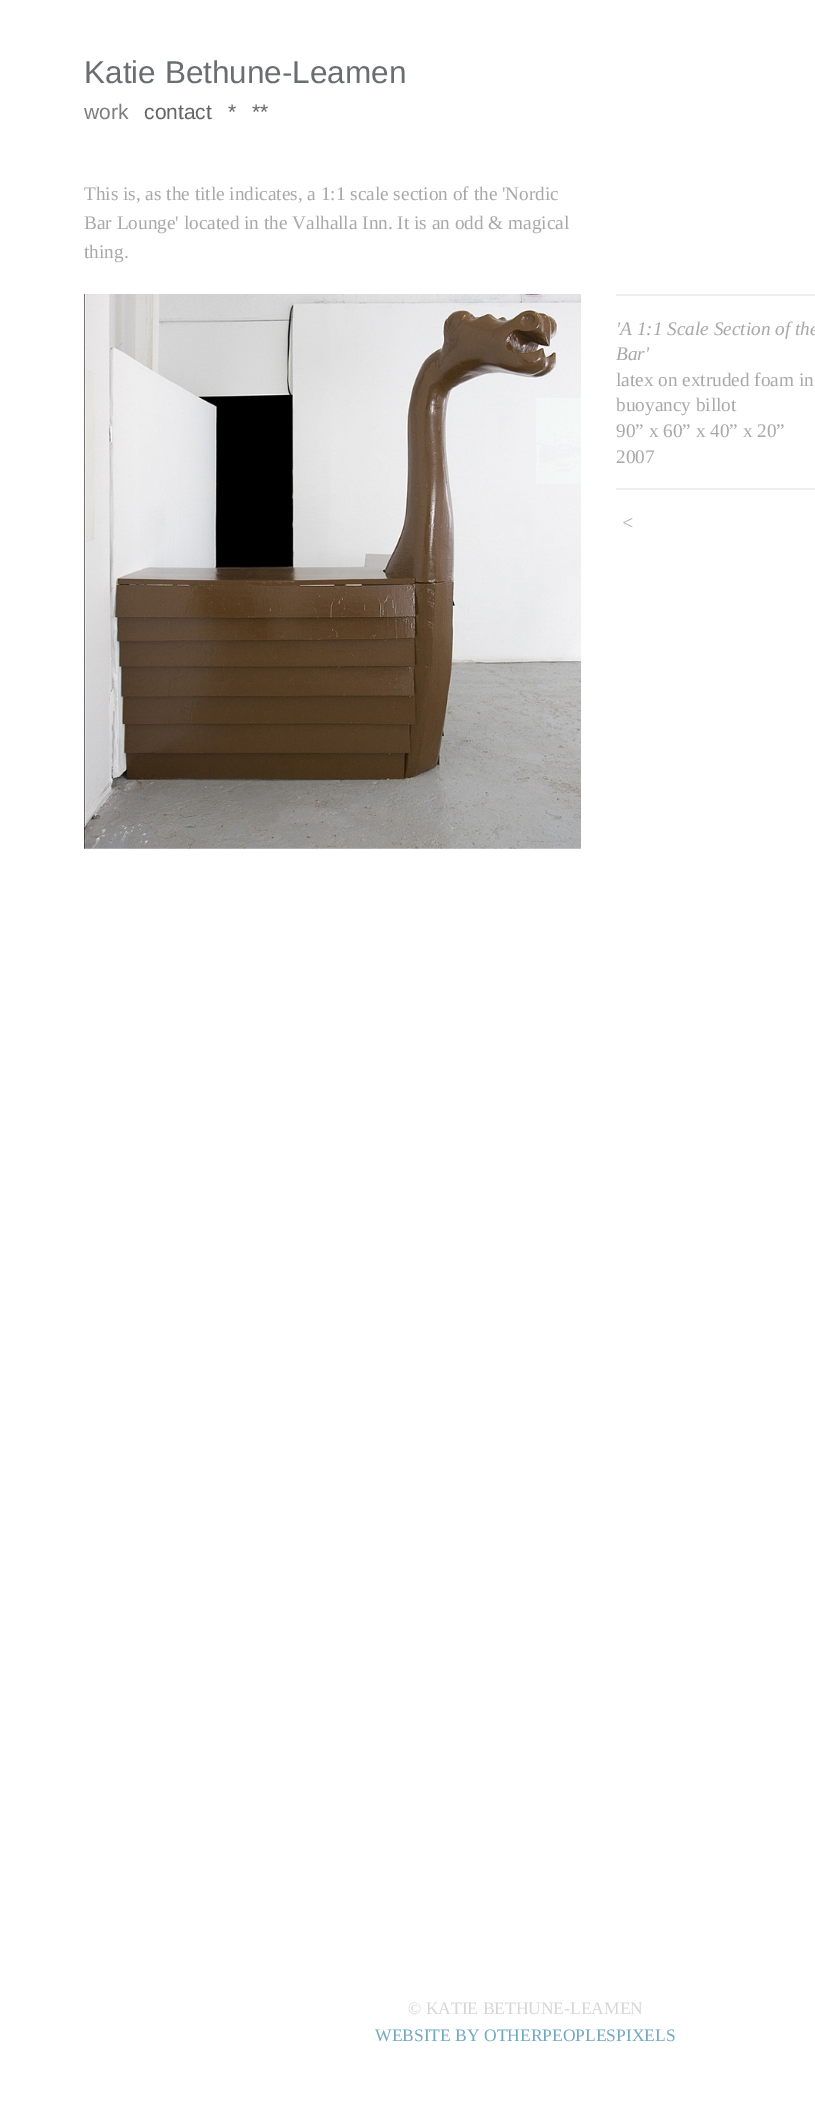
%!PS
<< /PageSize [815 2123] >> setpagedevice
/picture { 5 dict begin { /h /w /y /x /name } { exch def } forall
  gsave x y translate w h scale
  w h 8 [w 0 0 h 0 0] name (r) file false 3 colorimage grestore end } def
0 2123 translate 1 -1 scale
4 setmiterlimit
1 setgray
0 0 815 2123 rectfill
/LiberationSans-Regular [31.5 0 0 -31.5 0 0] selectfont
0.416 0.431 0.443 setrgbcolor
84 83 moveto (Katie Bethune-Leamen) show
/LiberationSans-Regular [21 0 0 -21 0 0] selectfont
0.49 0.49 0.51 setrgbcolor
84 119 moveto (work) show
0.392 0.392 0.408 setrgbcolor
144 119 moveto (contact) show
228 119 moveto (*) show
252 119 moveto (**) show
/LiberationSerif-Regular [19.25 0 0 -19.25 0 0] selectfont
0.659 setgray
84 200 moveto (This is, as the title indicates, a 1:1 scale section of the 'Nordic) show
84 229 moveto (Bar Lounge' located in the Valhalla Inn. It is an odd & magical) show
84 258 moveto (thing.) show
(img1.rgb) 84 294 497 555 picture
0.933 setgray
616 294 199 2 rectfill
/LiberationSerif-Italic [19.25 0 0 -19.25 0 0] selectfont
0.659 setgray
616 335 moveto ('A 1:1 Scale Section of the) show
616 360 moveto (Bar') show
/LiberationSerif-Regular [19.25 0 0 -19.25 0 0] selectfont
616 386 moveto (latex on extruded foam in) show
616 411 moveto (buoyancy billot) show
616 437 moveto (90” x 60” x 40” x 20”) show
616 463 moveto (2007) show
0.933 setgray
616 488 199 2 rectfill
/LiberationSerif-Italic [19.25 0 0 -19.25 0 0] selectfont
0.659 setgray
621 529 moveto 2 0 (<) ashow
/LiberationSerif-Regular [17.5 0 0 -17.5 0 0] selectfont
0.839 setgray
408 2014 moveto (© KATIE BETHUNE-LEAMEN) show
0.439 0.659 0.753 setrgbcolor
375 2041 moveto (WEBSITE BY OTHERPEOPLESPIXELS) show
showpage
